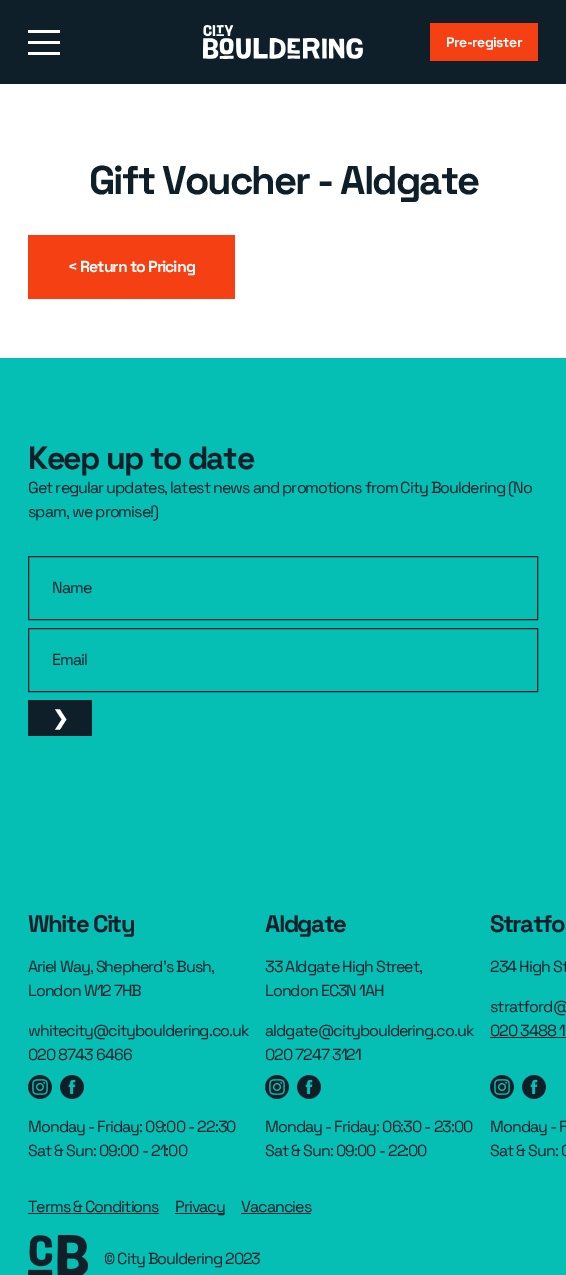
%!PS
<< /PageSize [566 1275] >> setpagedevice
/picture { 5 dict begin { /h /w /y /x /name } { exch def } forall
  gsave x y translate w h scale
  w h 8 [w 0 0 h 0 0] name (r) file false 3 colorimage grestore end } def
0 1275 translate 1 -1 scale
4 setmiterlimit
1 setgray
0 0 566 1275 rectfill
0.059 0.122 0.161 setrgbcolor
0 0 566 84 rectfill
1 setgray
28 30 32 3 rectfill
28 41 32 3 rectfill
28 52 32 3 rectfill
(img1.rgb) 203 25 160 34 picture
0.961 0.251 0.078 setrgbcolor
430 23 108 38 rectfill
/SpaceGrotesk-Bold [14 0 0 -14 0 0] selectfont
1 setgray
446 47 moveto -0.5 0 (Pre-register) ashow
/SpaceGrotesk-Bold [40 0 0 -40 0 0] selectfont
0.059 0.122 0.161 setrgbcolor
89 194 moveto -2 0 (Gift Voucher - Aldgate) ashow
0.961 0.251 0.078 setrgbcolor
28 235 207 64 rectfill
/SpaceGrotesk-Bold [16 0 0 -16 0 0] selectfont
1 setgray
68 272 moveto -1 0 (< Return to Pricing) ashow
0.02 0.749 0.71 setrgbcolor
0 358 566 917 rectfill
/SpaceGrotesk-Bold [32 0 0 -32 0 0] selectfont
0.059 0.122 0.161 setrgbcolor
28 469 moveto -1.5 0 (Keep up to date) ashow
/SpaceGrotesk-Regular [16 0 0 -16 0 0] selectfont
28 493 moveto -1 0 (Get regular updates, latest news and promotions from City Bouldering \(No) ashow
28 517 moveto -1 0 (spam, we promise!\)) ashow
28.5 556.5 509 63 rectstroke
52 593 moveto -1 0 (Name) ashow
28.5 628.5 509 63 rectstroke
52 665 moveto -1 0 (Email) ashow
28 700 64 36 rectfill
/DejaVuSans-Bold [20 0 0 -20 0 0] selectfont
1 setgray
52 725 moveto -1 0 (❯) ashow
/SpaceGrotesk-Bold [24 0 0 -24 0 0] selectfont
0.059 0.122 0.161 setrgbcolor
28 932 moveto -1.5 0 (White City) ashow
/SpaceGrotesk-Regular [16 0 0 -16 0 0] selectfont
28 972 moveto -1 0 (Ariel Way, Shepherd’s Bush,) ashow
28 996 moveto -1 0 (London W12 7HB) ashow
28 1036 moveto -1 0 (whitecity@citybouldering.co.uk) ashow
28 1060 moveto -1 0 (020 8743 6466) ashow
(img2.rgb) 28 1075 24 24 picture
(img3.rgb) 60 1075 24 24 picture
28 1132 moveto -1 0 (Monday - Friday: 09:00 - 22:30) ashow
28 1156 moveto -1 0 (Sat & Sun: 09:00 - 21:00) ashow
/SpaceGrotesk-Bold [24 0 0 -24 0 0] selectfont
265 932 moveto -1.5 0 (Aldgate) ashow
/SpaceGrotesk-Regular [16 0 0 -16 0 0] selectfont
265 972 moveto -1 0 (33 Aldgate High Street,) ashow
265 996 moveto -1 0 (London EC3N 1AH) ashow
265 1036 moveto -1 0 (aldgate@citybouldering.co.uk) ashow
265 1060 moveto -1 0 (020 7247 3121) ashow
(img2.rgb) 265 1075 24 24 picture
(img3.rgb) 297 1075 24 24 picture
265 1132 moveto -1 0 (Monday - Friday: 06:30 - 23:00) ashow
265 1156 moveto -1 0 (Sat & Sun: 09:00 - 22:00) ashow
/SpaceGrotesk-Bold [24 0 0 -24 0 0] selectfont
490 932 moveto -1.5 0 (Stratfo) ashow
/SpaceGrotesk-Regular [16 0 0 -16 0 0] selectfont
490 972 moveto -1 0 (234 High St) ashow
490 1012 moveto -1 0 (stratford@) ashow
490 1036 moveto -1 0 (020 3488 1) ashow
490 1037 76 1 rectfill
(img2.rgb) 490 1075 24 24 picture
(img3.rgb) 522 1075 24 24 picture
490 1132 moveto -1 0 (Monday - F) ashow
490 1156 moveto -1 0 (Sat & Sun: 0) ashow
28 1212 moveto -1 0 (Terms & Conditions) ashow
28 1213 131 1 rectfill
175 1213 50 1 rectfill
175 1212 moveto -1 0 (Privacy) ashow
241 1212 moveto -1 0 (Vacancies) ashow
241 1213 70 1 rectfill
(img4.rgb) 28 1235 60 40 picture
104 1264 moveto -1 0 (© City Bouldering 2023) ashow
showpage
